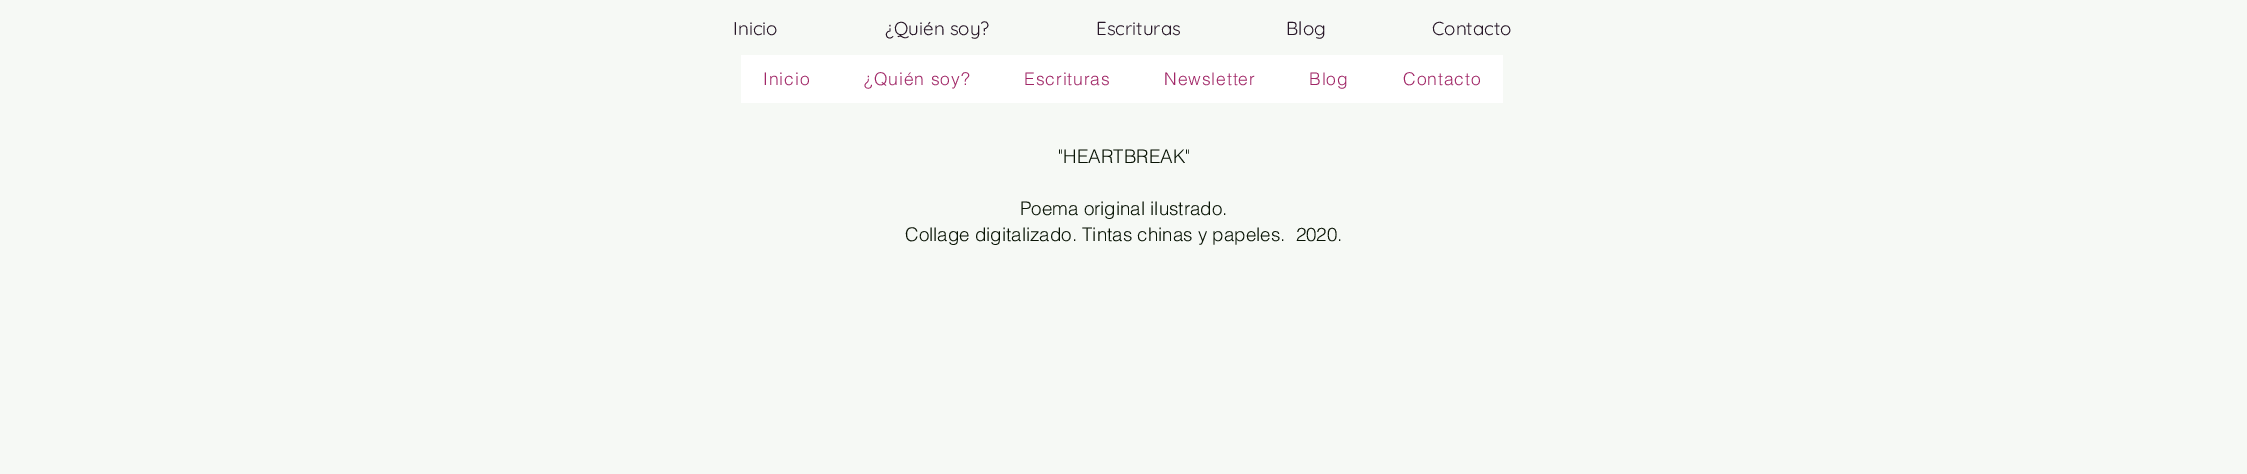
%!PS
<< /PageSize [2247 474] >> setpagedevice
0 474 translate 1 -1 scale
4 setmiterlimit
0.965 0.976 0.961 setrgbcolor
0 0 2247 474 rectfill
/Quicksand-Regular [18.75 0 0 -18.75 0 0] selectfont
0.157 0.09 0.157 setrgbcolor
733 35 moveto (Inicio) show
885 35 moveto (¿Quién soy?) show
1096 35 moveto (Escrituras) show
1286 35 moveto (Blog) show
1432 35 moveto (Contacto) show
/helvetica-Light [18.75 0 0 -18.75 0 0] selectfont
0.035 0.078 0.02 setrgbcolor
1058 163 moveto ("HEARTBREAK") show
1020 215 moveto (Poema original ilustrado.) show
905 241 moveto (Collage digitalizado. Tintas chinas y papeles.  2020.) show
1 setgray
741 55 762 48 rectfill
/helvetica-Light [17.5 0 0 -17.5 0 0] selectfont
0.631 0.153 0.404 setrgbcolor
763 85 moveto 0.9 0 (Inicio) ashow
864 85 moveto 0.9 0 (¿Quién soy?) ashow
1024 85 moveto 0.9 0 (Escrituras) ashow
1164 85 moveto 0.9 0 (Newsletter) ashow
1309 85 moveto 0.9 0 (Blog) ashow
1403 85 moveto 0.9 0 (Contacto) ashow
showpage
